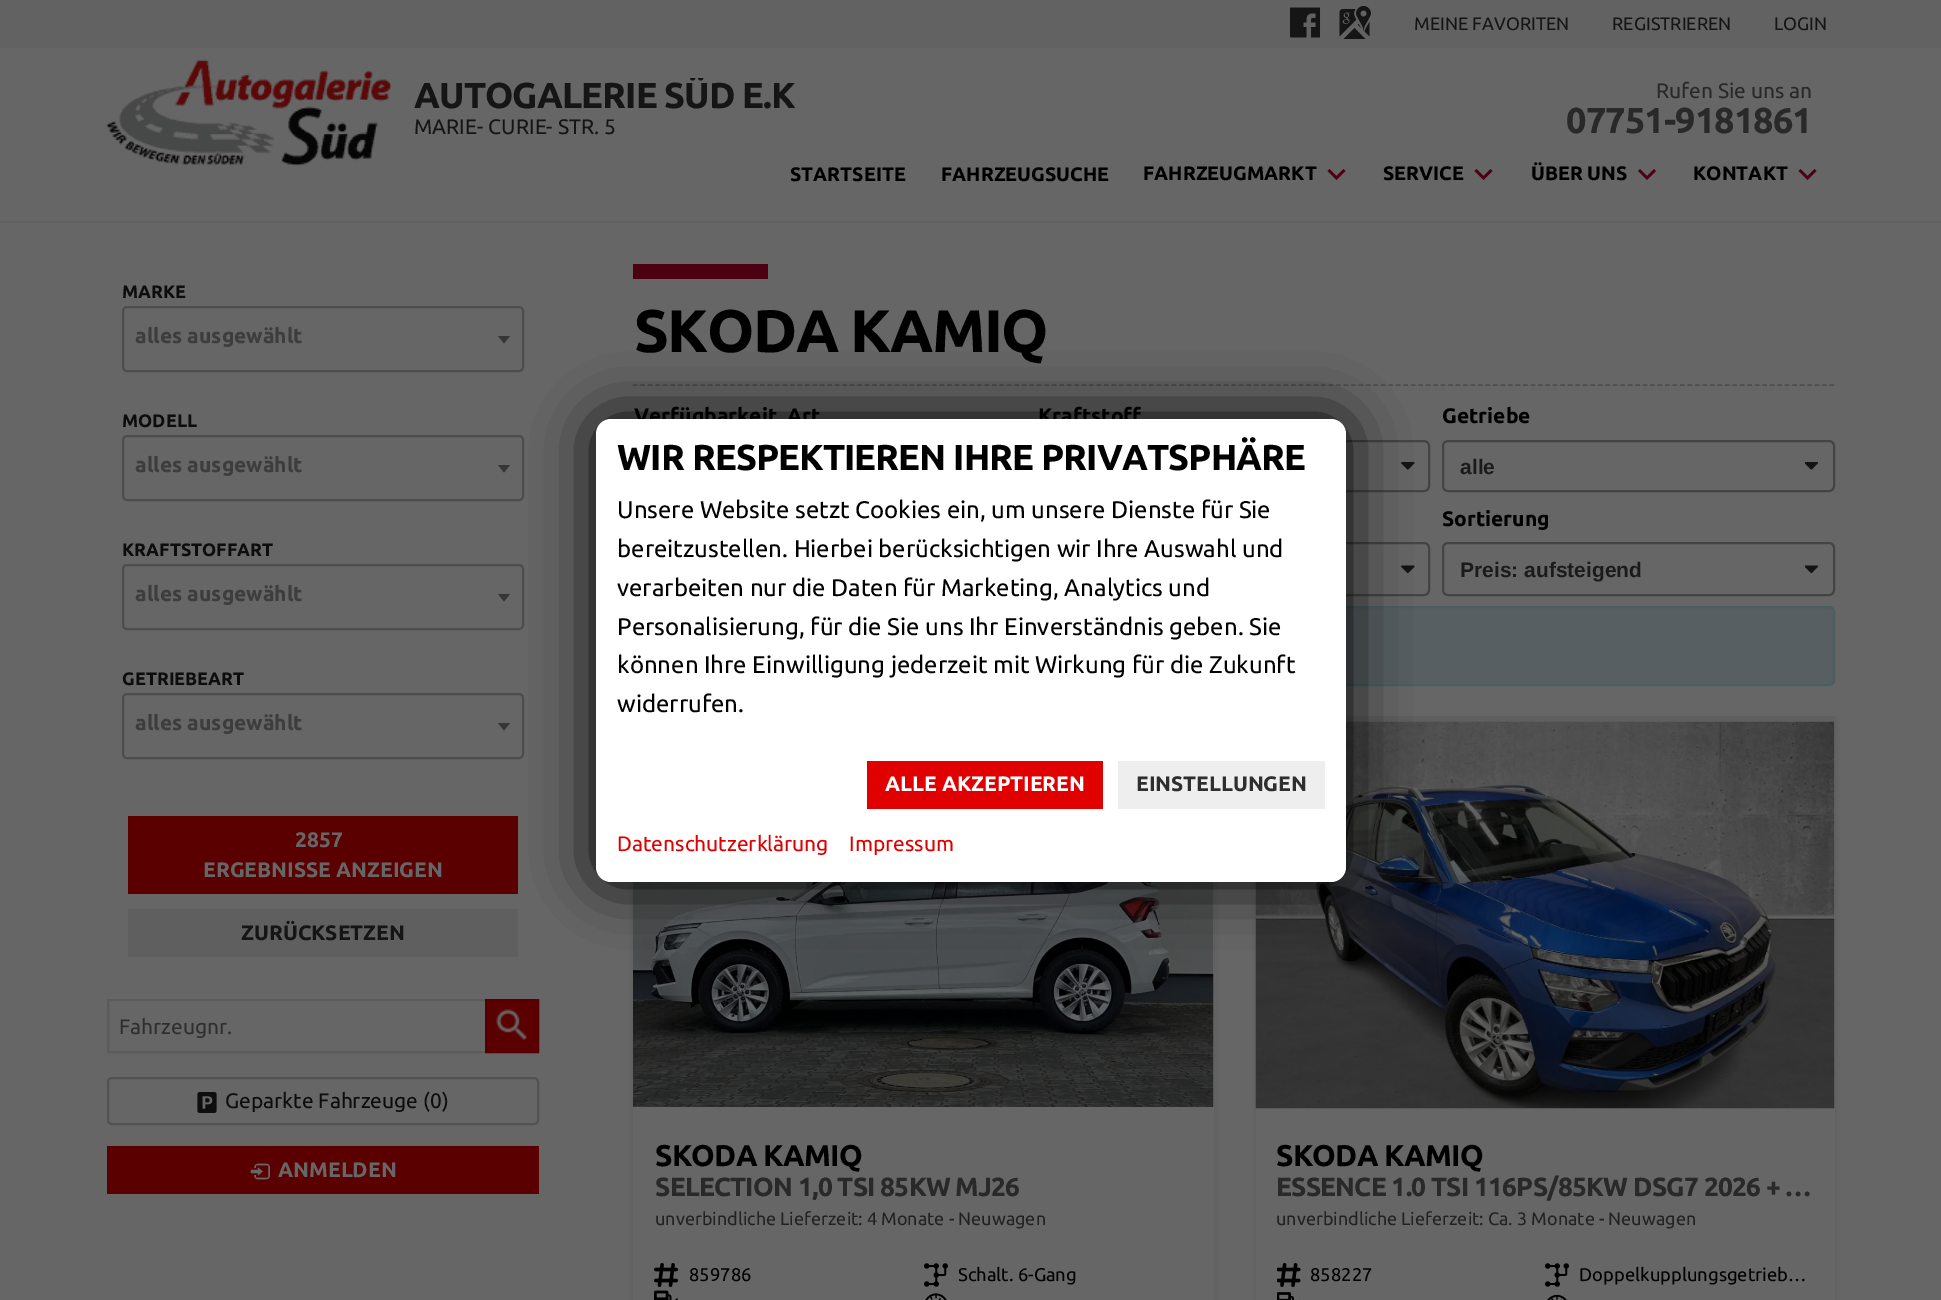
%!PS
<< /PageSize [1941 1300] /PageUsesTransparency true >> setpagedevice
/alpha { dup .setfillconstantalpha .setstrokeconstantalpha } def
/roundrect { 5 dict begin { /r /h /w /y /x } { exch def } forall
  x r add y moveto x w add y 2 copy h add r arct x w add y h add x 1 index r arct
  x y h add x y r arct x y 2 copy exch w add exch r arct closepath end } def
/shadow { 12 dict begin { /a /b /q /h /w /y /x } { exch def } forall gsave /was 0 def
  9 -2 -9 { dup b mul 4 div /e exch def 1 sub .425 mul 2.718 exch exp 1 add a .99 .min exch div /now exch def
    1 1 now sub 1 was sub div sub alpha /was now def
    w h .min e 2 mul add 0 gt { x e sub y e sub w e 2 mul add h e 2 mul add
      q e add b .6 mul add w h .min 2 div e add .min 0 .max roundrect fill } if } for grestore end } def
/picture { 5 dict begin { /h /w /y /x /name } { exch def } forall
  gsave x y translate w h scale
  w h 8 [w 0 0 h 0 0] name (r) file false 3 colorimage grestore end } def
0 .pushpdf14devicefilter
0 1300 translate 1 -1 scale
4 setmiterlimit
0.4 setgray
0 0 1941 1300 rectfill
0.373 setgray
0 221 1941 2 rectfill
0.384 setgray
0 0 1941 48 rectfill
(img1.rgb) 1290 7 31 31 picture
(img2.rgb) 1339 6 32 33 picture
/Ubuntu-Regular [18 0 0 -18 0 0] selectfont
0.082 setgray
1414 30 moveto (MEINE FAVORITEN) show
1612 30 moveto (REGISTRIEREN) show
1774 30 moveto (LOGIN) show
(img3.rgb) 106 59 286 107 picture
gsave
414 78 839 62 rectclip
/Ubuntu-Bold [36 0 0 -36 0 0] selectfont
414 108 moveto -0.9 0 (AUTOGALERIE SÜD E.K) ashow
grestore
/Ubuntu-Regular [21 0 0 -21 0 0] selectfont
414 134 moveto (MARIE- CURIE- STR. 5) show
0.161 setgray
1656 98 moveto (Rufen Sie uns an) show
/Ubuntu-Bold [36 0 0 -36 0 0] selectfont
1566 133 moveto -0.9 0 (07751-9181861) ashow
/Ubuntu-Bold [19.5 0 0 -19.5 0 0] selectfont
0 setgray
790 181 moveto (STARTSEITE) show
941 181 moveto (FAHRZEUGSUCHE) show
1143 180 moveto (FAHRZEUGMARKT) show
0.306 0 0.075 setrgbcolor
newpath 1343.5 169 moveto 1345.5 171 lineto 1336.5 180 lineto 1327.5 171 lineto 1329.5 169 lineto 1336.5 176 lineto closepath fill
0 setgray
1383 180 moveto (SERVICE) show
0.306 0 0.075 setrgbcolor
newpath 1490.5 169 moveto 1492.5 171 lineto 1483.5 180 lineto 1474.5 171 lineto 1476.5 169 lineto 1483.5 176 lineto closepath fill
0 setgray
1531 180 moveto (ÜBER UNS) show
0.306 0 0.075 setrgbcolor
newpath 1654 169 moveto 1656 171 lineto 1647 180 lineto 1638 171 lineto 1640 169 lineto 1647 176 lineto closepath fill
0 setgray
1693 180 moveto (KONTAKT) show
0.306 0 0.075 setrgbcolor
newpath 1814.5 169 moveto 1816.5 171 lineto 1807.5 180 lineto 1798.5 171 lineto 1800.5 169 lineto 1807.5 176 lineto closepath fill
/Ubuntu-Bold [18 0 0 -18 0 0] selectfont
0.051 setgray
122 298 moveto (MARKE) show
0.302 setgray
2 setlinewidth
123 307 400 64 4 roundrect stroke
/Ubuntu-Bold [21 0 0 -21 0 0] selectfont
0.239 setgray
135 343 moveto (alles ausgewählt) show
0.212 setgray
newpath 498 336 moveto 510 336 lineto 504 343.5 lineto closepath fill
/Ubuntu-Bold [18 0 0 -18 0 0] selectfont
0.051 setgray
122 427 moveto (MODELL) show
0.302 setgray
123 436 400 64 4 roundrect stroke
/Ubuntu-Bold [21 0 0 -21 0 0] selectfont
0.239 setgray
135 472 moveto (alles ausgewählt) show
0.212 setgray
newpath 498 465 moveto 510 465 lineto 504 472.5 lineto closepath fill
/Ubuntu-Bold [18 0 0 -18 0 0] selectfont
0.051 setgray
122 556 moveto (KRAFTSTOFFART) show
0.302 setgray
123 565 400 64 4 roundrect stroke
/Ubuntu-Bold [21 0 0 -21 0 0] selectfont
0.239 setgray
135 601 moveto (alles ausgewählt) show
0.212 setgray
newpath 498 594 moveto 510 594 lineto 504 601.5 lineto closepath fill
/Ubuntu-Bold [18 0 0 -18 0 0] selectfont
0.051 setgray
122 685 moveto (GETRIEBEART) show
0.302 setgray
123 694 400 64 4 roundrect stroke
/Ubuntu-Bold [21 0 0 -21 0 0] selectfont
0.239 setgray
135 730 moveto (alles ausgewählt) show
0.212 setgray
newpath 498 723 moveto 510 723 lineto 504 730.5 lineto closepath fill
0.353 0 0 setrgbcolor
128 816 390 78 rectfill
0.4 setgray
295 847 moveto (2857) show
203 877 moveto (ERGEBNISSE ANZEIGEN) show
0.373 setgray
128 909 390 48 rectfill
0.082 setgray
241 940 moveto (ZURÜCKSETZEN) show
0.357 setgray
108 1000 430 52 rectstroke
/Ubuntu-Regular [21 0 0 -21 0 0] selectfont
0.184 setgray
119 1034 moveto (Fahrzeugnr.) show
0.353 0 0 setrgbcolor
487 1001 50 50 rectfill
(img4.rgb) 496 1009 31 31 picture
0.329 0 0 setrgbcolor
486 1000 52 52 rectstroke
0.322 setgray
108 1078 430 46 4 roundrect stroke
(img5.rgb) 197 1092 20 21 picture
0.051 setgray
225 1108 moveto (Geparkte Fahrzeuge \(0\)) show
0.353 0 0 setrgbcolor
107 1146 432 48 rectfill
(img6.rgb) 250 1163 20 17 picture
/Ubuntu-Bold [21 0 0 -21 0 0] selectfont
0.4 setgray
278 1177 moveto (ANMELDEN) show
0.302 setgray
1.5 setlinewidth
[4.5 2.98] 0 setdash
newpath 633 385 moveto 1834.5 385 lineto stroke
0.306 0 0.075 setrgbcolor
633 264 135 15 rectfill
/Ubuntu-Bold [60 0 0 -60 0 0] selectfont
0 setgray
634 352 moveto -1.5 0 (SKODA KAMIQ) ashow
/Ubuntu-Bold [21 0 0 -21 0 0] selectfont
634 423 moveto (Verfügbarkeit, Art) show
1038 423 moveto (Kraftstoff) show
(img7.rgb) 1401 462 14 8 picture
0.267 setgray
2 setlinewidth
[] 0 setdash
1039 441 390 50 5 roundrect stroke
0 setgray
1442 423 moveto (Getriebe) show
(img8.rgb) 1805 462 13 8 picture
0.267 setgray
1443 441 391 50 5 roundrect stroke
/LiberationSans-Bold [21 0 0 -21 0 0] selectfont
0.106 setgray
1460 474 moveto (alle) show
(img9.rgb) 1401 565 14 9 picture
0.267 setgray
1039 543 390 52 5 roundrect stroke
/Ubuntu-Bold [21 0 0 -21 0 0] selectfont
0 setgray
1442 526 moveto (Sortierung) show
(img10.rgb) 1805 565 13 9 picture
0.267 setgray
1443 543 391 52 5 roundrect stroke
/LiberationSans-Bold [21 0 0 -21 0 0] selectfont
0.106 setgray
1460 577 moveto (Preis: aufsteigend) show
0.341 0.373 0.388 setrgbcolor
634 607 1200 78 5 roundrect gsave fill grestore
0.294 0.365 0.376 setrgbcolor
stroke
0 setgray
633 719 581 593 0 4 0.1 shadow
0.4 setgray
633 882 581 418 rectfill
(img11.rgb) 633 882 581 225 picture
/Ubuntu-Bold [30 0 0 -30 0 0] selectfont
0 setgray
655 1166 moveto -0.75 0 (SKODA KAMIQ) ashow
/Ubuntu-Bold [26.25 0 0 -26.25 0 0] selectfont
0.161 setgray
655 1196 moveto -0.75 0 (SELECTION 1,0 TSI 85KW MJ26) ashow
/Ubuntu-Regular [18 0 0 -18 0 0] selectfont
0.133 setgray
655 1225 moveto (unverbindliche Lieferzeit: 4 Monate - Neuwagen) show
(img12.rgb) 654 1263 24 24 picture
/Ubuntu-Regular [18.4 0 0 -18.4 0 0] selectfont
0 setgray
689 1281 moveto (859786) show
(img13.rgb) 924 1263 24 24 picture
gsave
959 1262 234 27 rectclip
958 1281 moveto (Schalt. 6-Gang) show
grestore
(img14.rgb) 654 1290 24 10 picture
(img15.rgb) 925 1293 22 7 picture
1256 719 579 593 0 4 0.1 shadow
0.4 setgray
1256 722 579 578 rectfill
0.373 setgray
1346 716 489 6 rectfill
(img16.rgb) 1255 721 580 388 picture
/Ubuntu-Bold [30 0 0 -30 0 0] selectfont
0 setgray
1276 1166 moveto -0.75 0 (SKODA KAMIQ) ashow
/Ubuntu-Bold [26.25 0 0 -26.25 0 0] selectfont
0.161 setgray
1276 1196 moveto -0.75 0 (ESSENCE 1.0 TSI 116PS/85KW DSG7 2026 + …) ashow
/Ubuntu-Regular [18 0 0 -18 0 0] selectfont
0.133 setgray
1276 1225 moveto (unverbindliche Lieferzeit: Ca. 3 Monate - Neuwagen) show
(img17.rgb) 1277 1263 24 24 picture
/Ubuntu-Regular [18.4 0 0 -18.4 0 0] selectfont
0 setgray
1310 1281 moveto (858227) show
(img13.rgb) 1545 1263 24 24 picture
1579 1281 moveto (Doppelkupplungsgetrieb…) show
(img18.rgb) 1277 1292 23 8 picture
(img19.rgb) 1547 1294 20 6 picture
596 419 750 463 15 30 1 shadow
1 setgray
596 419 750 463 15 roundrect fill
/Ubuntu-Bold [36 0 0 -36 0 0] selectfont
0 setgray
617 470 moveto -0.9 0 (WIR RESPEKTIEREN IHRE PRIVATSPHÄRE) ashow
/Ubuntu-Regular [24 0 0 -24 0 0] selectfont
617 518 moveto (Unsere Website setzt Cookies ein, um unsere Dienste für Sie) show
617 557 moveto (bereitzustellen. Hierbei berücksichtigen wir Ihre Auswahl und) show
617 596 moveto (verarbeiten nur die Daten für Marketing, Analytics und) show
617 635 moveto (Personalisierung, für die Sie uns Ihr Einverständnis geben. Sie) show
617 673 moveto (können Ihre Einwilligung jederzeit mit Wirkung für die Zukunft) show
617 712 moveto (widerrufen.) show
0.878 0 0 setrgbcolor
867 761 236 48 rectfill
/Ubuntu-Bold [21 0 0 -21 0 0] selectfont
1 setgray
885 791 moveto (ALLE AKZEPTIEREN) show
0.933 setgray
1118 761 207 48 rectfill
0.184 setgray
1136 791 moveto (EINSTELLUNGEN) show
/Ubuntu-Regular [21 0 0 -21 0 0] selectfont
0.878 0 0 setrgbcolor
617 851 moveto (Datenschutzerklärung) show
849 851 moveto (Impressum) show
.poppdf14devicefilter showpage
